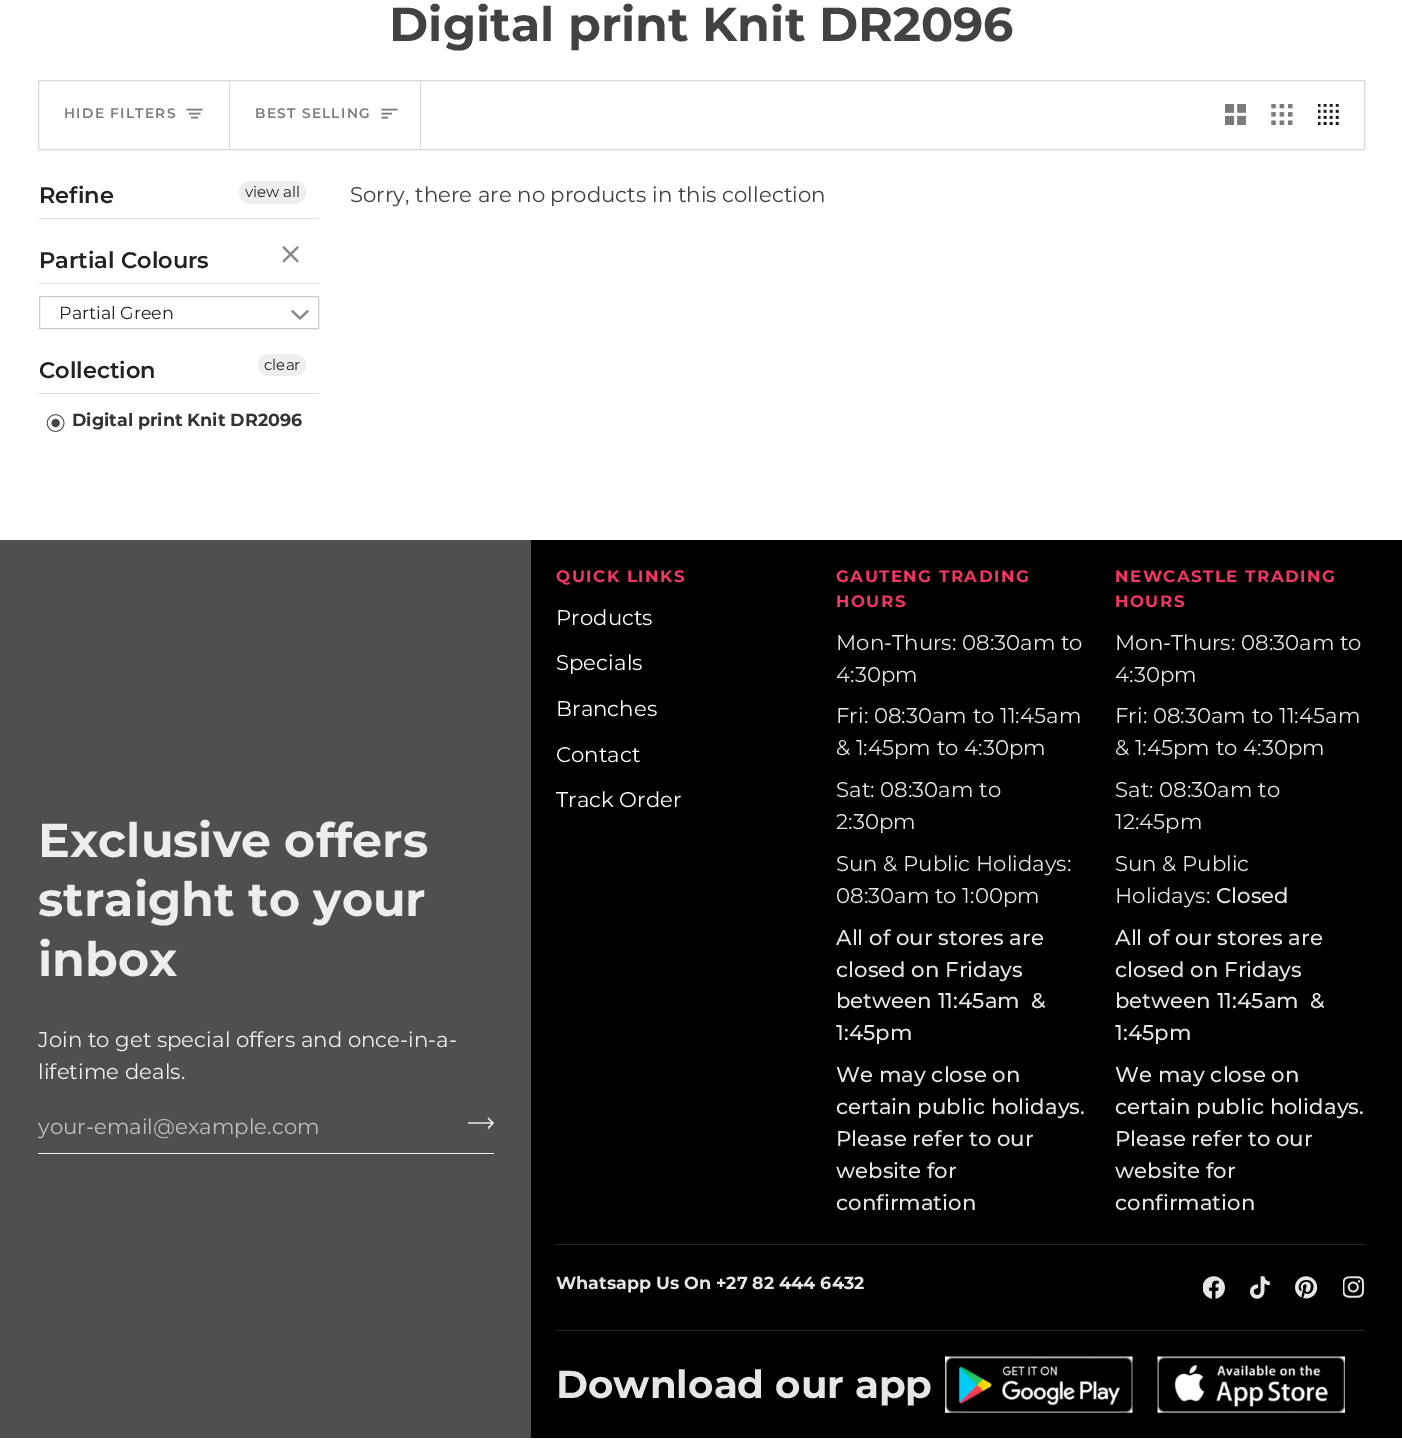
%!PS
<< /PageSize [1402 1453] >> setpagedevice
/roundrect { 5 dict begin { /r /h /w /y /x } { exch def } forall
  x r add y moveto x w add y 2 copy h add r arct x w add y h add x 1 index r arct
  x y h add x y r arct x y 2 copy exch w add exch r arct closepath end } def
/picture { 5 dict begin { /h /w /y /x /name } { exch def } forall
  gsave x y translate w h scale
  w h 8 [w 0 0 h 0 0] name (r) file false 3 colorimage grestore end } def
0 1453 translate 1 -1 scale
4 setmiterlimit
1 setgray
0 0 1402 1453 rectfill
/Montserrat-Bold [47.5 0 0 -47.5 0 0] selectfont
0.259 setgray
389 41 moveto (Digital print Knit DR2096) show
0.851 setgray
38.5 80.5 1326 69 rectstroke
229 81 1 68 rectfill
/Montserrat-SemiBold [13.75 0 0 -13.75 0 0] selectfont
0.482 setgray
64 118 moveto 1.25 0 (HIDE FILTERS) ashow
1.6 setlinewidth
2 setlinecap
newpath 201.5 109.5 moveto 187.5 109.5 lineto 199.5 113.5 moveto 190 113.5 lineto 197 117.5 moveto 192 117.5 lineto stroke
0.851 setgray
420 81 1 68 rectfill
0.482 setgray
255 118 moveto 1.25 0 (BEST SELLING) ashow
newpath 396.5 109.5 moveto 382.5 109.5 lineto 391 113.5 moveto 382.5 113.5 lineto 387 117.5 moveto 382.5 117.5 lineto stroke
(img1.rgb) 1225 104 21 21 picture
(img2.rgb) 1271 104 22 21 picture
(img3.rgb) 1318 104 21 21 picture
0.867 setgray
39 218 280 1 rectfill
/Montserrat-SemiBold [22.5 0 0 -22.5 0 0] selectfont
0.133 setgray
39 203 moveto (Refine) show
0.933 setgray
239 181 67 23 11.5 roundrect fill
/Montserrat-Regular [15 0 0 -15 0 0] selectfont
0.133 setgray
245 197 moveto (view all) show
0.867 setgray
39 283 280 1 rectfill
/Montserrat-SemiBold [22.5 0 0 -22.5 0 0] selectfont
0.133 setgray
39 268 moveto (Partial Colours) show
(img4.rgb) 282 246 17 17 picture
0.8 setgray
1 setlinewidth
0 setlinecap
39.5 296.5 279 32 rectstroke
/Montserrat-Regular [17.5 0 0 -17.5 0 0] selectfont
0.133 setgray
59 319 moveto (Partial Green) show
(img5.rgb) 291 310 18 10 picture
0.933 setgray
258 354 48 22 11 roundrect fill
/Montserrat-Regular [15 0 0 -15 0 0] selectfont
0.133 setgray
264 370 moveto (clear) show
(img6.rgb) 46 414 19 18 picture
/Montserrat-Bold [17.5 0 0 -17.5 0 0] selectfont
0.2 setgray
72 426 moveto (Digital print Knit DR2096) show
0.867 setgray
39 393 280 1 rectfill
/Montserrat-SemiBold [22.5 0 0 -22.5 0 0] selectfont
0.133 setgray
39 378 moveto (Collection) show
/Montserrat-Regular [21.25 0 0 -21.25 0 0] selectfont
0.259 setgray
350 202 moveto (Sorry, there are no products in this collection) show
0 setgray
531 540 871 898 rectfill
0.31 setgray
0 540 531 898 rectfill
/Montserrat-Bold [47.5 0 0 -47.5 0 0] selectfont
0.929 setgray
38 857 moveto (Exclusive offers) show
38 916 moveto (straight to your) show
38 976 moveto (inbox) show
/Montserrat-Regular [21.25 0 0 -21.25 0 0] selectfont
38 1047 moveto (Join to get special offers and once-in-a-) show
38 1079 moveto (lifetime deals.) show
38 1153 456 1 rectfill
gsave
38 1103 415 46 4 roundrect clip newpath
0.745 setgray
38 1134 moveto (your-email@example.com) show
grestore
1.3 setlinewidth
newpath 488 1118 moveto 493 1123 lineto 488 1128.5 lineto 468 1123 moveto 493 1123 lineto stroke
/Montserrat-Bold [16.6 0 0 -16.6 0 0] selectfont
0.945 0.212 0.392 setrgbcolor
556 582 moveto 1.5 0 (QUICK LINKS) ashow
/Montserrat-Regular [21.25 0 0 -21.25 0 0] selectfont
1 setgray
556 625 moveto (Products) show
556 670 moveto (Specials) show
556 716 moveto (Branches) show
556 762 moveto (Contact) show
556 807 moveto (Track Order) show
/Montserrat-Bold [16.6 0 0 -16.6 0 0] selectfont
0.945 0.212 0.392 setrgbcolor
836 582 moveto 1.5 0 (GAUTENG TRADING) ashow
836 607 moveto 1.5 0 (HOURS) ashow
/Montserrat-Regular [21.25 0 0 -21.25 0 0] selectfont
0.902 setgray
836 650 moveto (Mon-Thurs: 08:30am to) show
836 682 moveto (4:30pm) show
836 723 moveto (Fri: 08:30am to 11:45am) show
836 755 moveto (& 1:45pm to 4:30pm) show
836 797 moveto (Sat: 08:30am to) show
836 829 moveto (2:30pm) show
836 871 moveto (Sun & Public Holidays:) show
836 903 moveto (08:30am to 1:00pm) show
/Montserrat-Medium [21.25 0 0 -21.25 0 0] selectfont
836 945 moveto (All of our stores are) show
836 977 moveto (closed on Fridays) show
836 1008 moveto (between 11:45am  &) show
836 1040 moveto (1:45pm) show
836 1082 moveto (We may close on) show
836 1114 moveto (certain public holidays.) show
836 1146 moveto (Please refer to our) show
836 1178 moveto (website for) show
836 1210 moveto (confirmation) show
/Montserrat-Bold [16.6 0 0 -16.6 0 0] selectfont
0.945 0.212 0.392 setrgbcolor
1115 582 moveto 1.5 0 (NEWCASTLE TRADING) ashow
1115 607 moveto 1.5 0 (HOURS) ashow
/Montserrat-Regular [21.25 0 0 -21.25 0 0] selectfont
0.902 setgray
1115 650 moveto (Mon-Thurs: 08:30am to) show
1115 682 moveto (4:30pm) show
1115 723 moveto (Fri: 08:30am to 11:45am) show
1115 755 moveto (& 1:45pm to 4:30pm) show
1115 797 moveto (Sat: 08:30am to) show
1115 829 moveto (12:45pm) show
1115 871 moveto (Sun & Public) show
1115 903 moveto (Holidays:) show
/Montserrat-Medium [21.25 0 0 -21.25 0 0] selectfont
1216 903 moveto (Closed) show
1115 945 moveto (All of our stores are) show
1115 977 moveto (closed on Fridays) show
1115 1008 moveto (between 11:45am  &) show
1115 1040 moveto (1:45pm) show
1115 1082 moveto (We may close on) show
1115 1114 moveto (certain public holidays.) show
1115 1146 moveto (Please refer to our) show
1115 1178 moveto (website for) show
1115 1210 moveto (confirmation) show
0.149 setgray
556 1244 809 1 rectfill
/Montserrat-Bold [17.5 0 0 -17.5 0 0] selectfont
0.902 setgray
556 1289 moveto (Whatsapp Us On +27 82 444 6432) show
(img7.rgb) 1203 1276 22 23 picture
(img8.rgb) 1250 1276 20 23 picture
(img9.rgb) 1295 1276 23 23 picture
(img10.rgb) 1343 1276 21 22 picture
0.149 setgray
556 1330 809 1 rectfill
/Montserrat-Bold [38.75 0 0 -38.75 0 0] selectfont
0.902 setgray
556 1398 moveto (Download our app) show
(img11.rgb) 945 1356 188 57 picture
(img12.rgb) 1157 1356 188 57 picture
showpage
